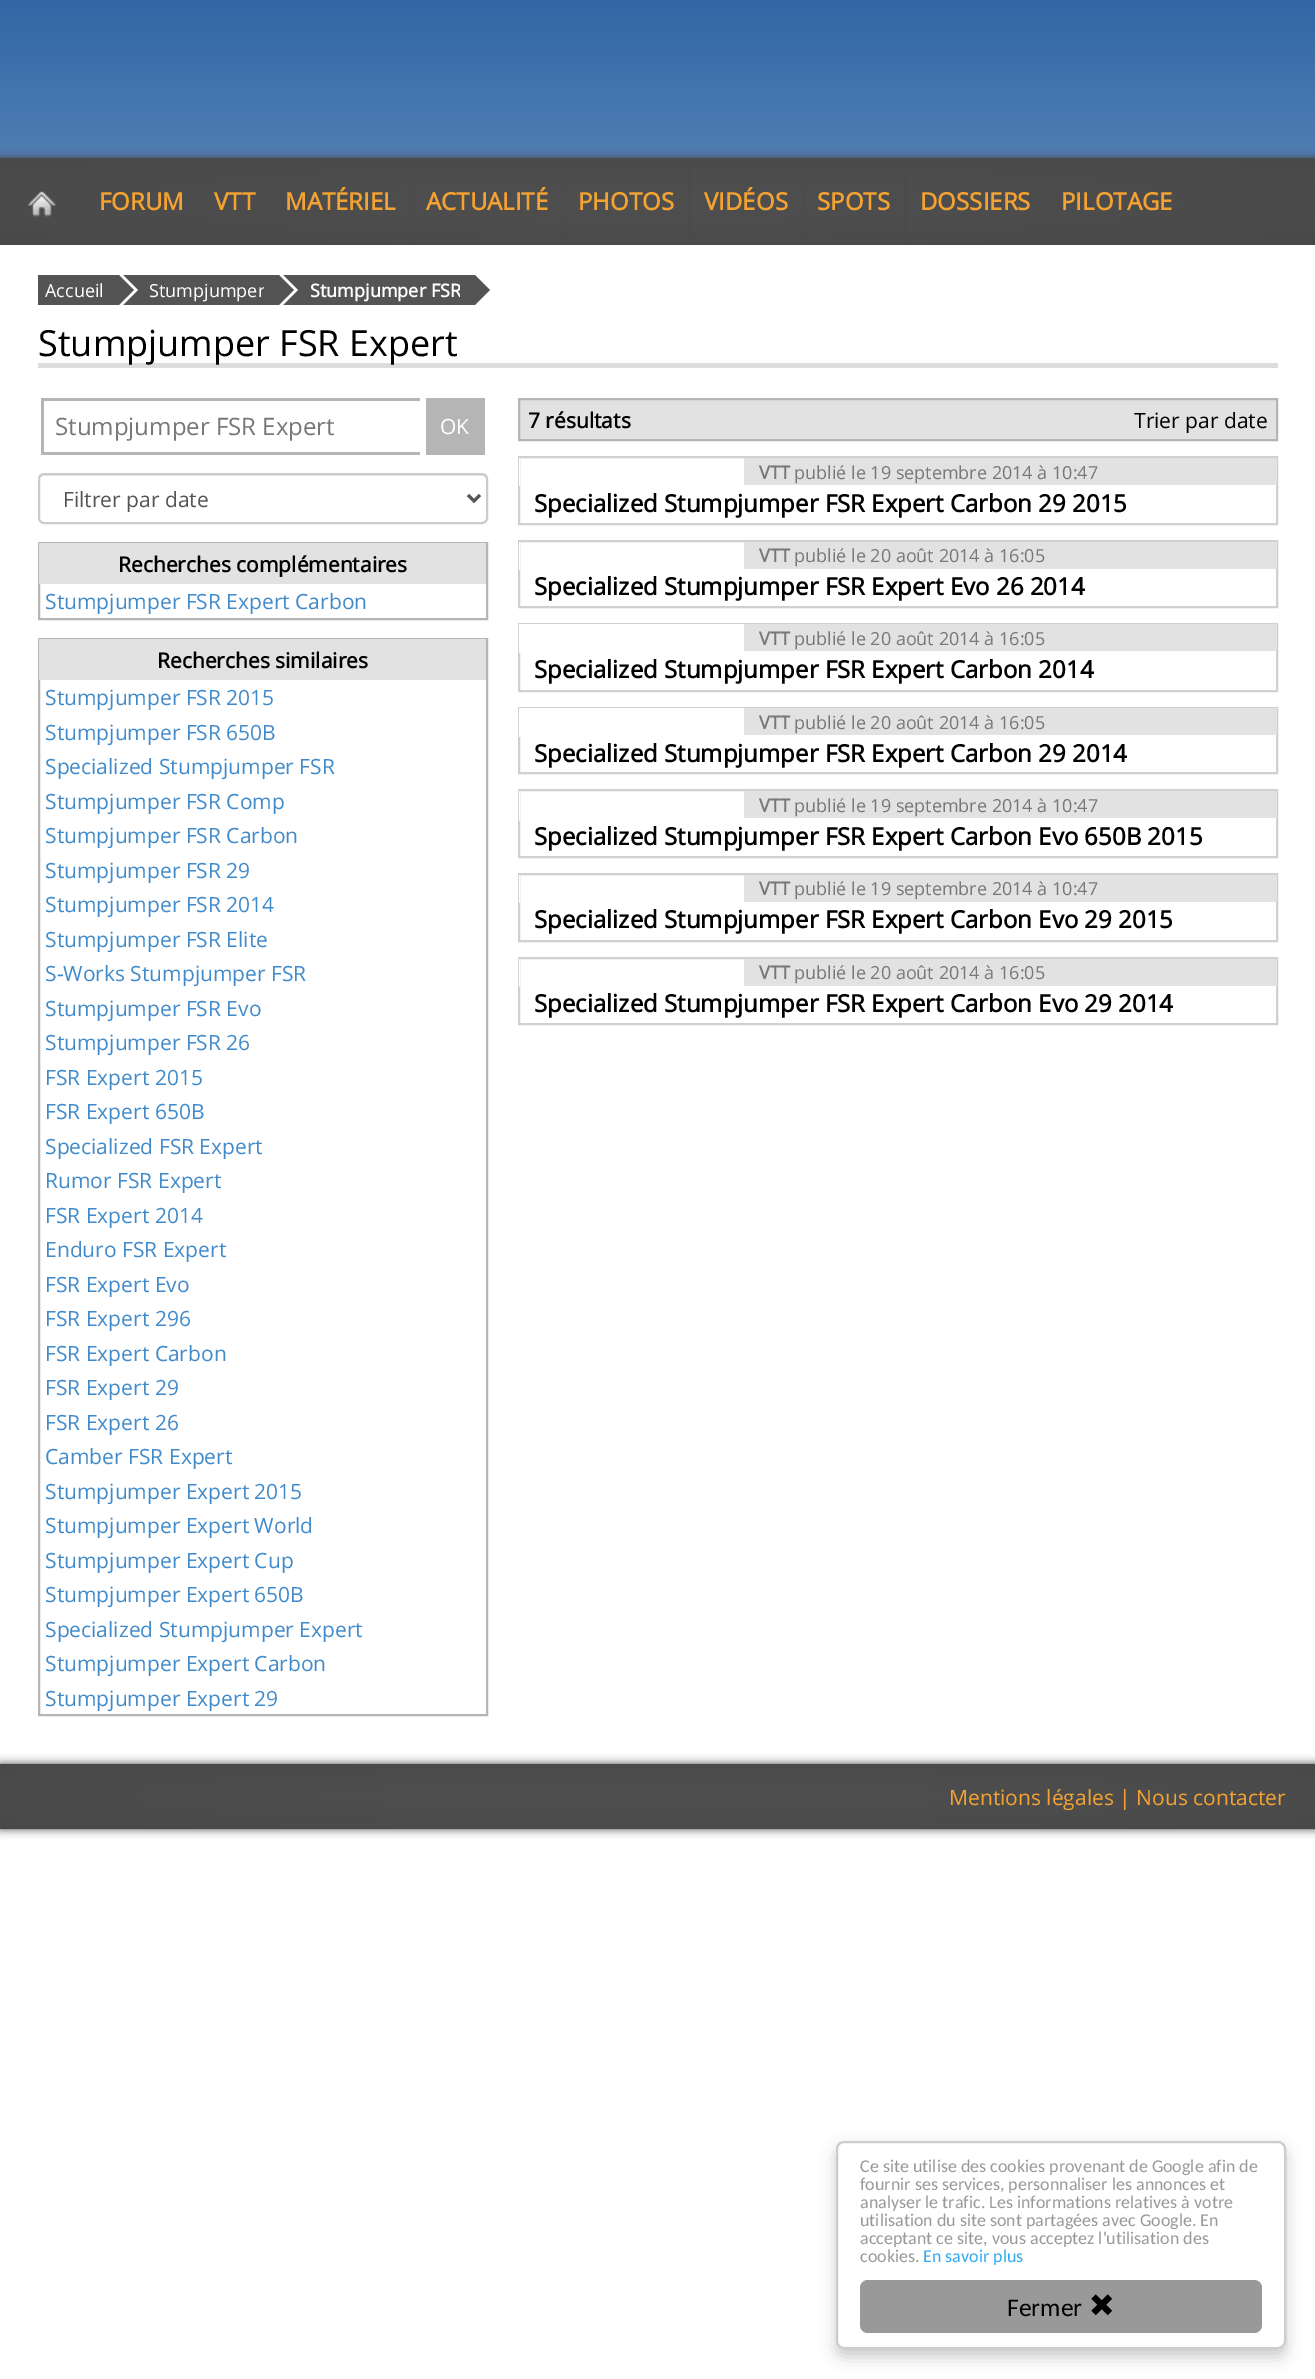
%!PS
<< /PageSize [1315 2379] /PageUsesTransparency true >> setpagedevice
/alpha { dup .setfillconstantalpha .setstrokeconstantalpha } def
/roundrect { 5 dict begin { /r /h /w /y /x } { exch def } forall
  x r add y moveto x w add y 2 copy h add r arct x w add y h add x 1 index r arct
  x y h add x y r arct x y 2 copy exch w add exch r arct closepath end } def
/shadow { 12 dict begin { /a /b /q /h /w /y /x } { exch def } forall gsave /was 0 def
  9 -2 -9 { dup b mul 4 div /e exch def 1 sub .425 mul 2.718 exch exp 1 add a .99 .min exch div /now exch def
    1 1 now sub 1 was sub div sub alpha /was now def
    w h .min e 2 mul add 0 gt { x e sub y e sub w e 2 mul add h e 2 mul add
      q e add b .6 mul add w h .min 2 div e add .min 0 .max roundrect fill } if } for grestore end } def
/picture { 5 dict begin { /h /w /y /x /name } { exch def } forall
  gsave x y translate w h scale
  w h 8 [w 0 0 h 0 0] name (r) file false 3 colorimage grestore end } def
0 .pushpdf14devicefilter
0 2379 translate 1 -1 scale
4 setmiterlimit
1 setgray
0 0 1315 2379 rectfill
gsave newpath 0 0 moveto 1315 0 lineto 1315 158 lineto 0 158 lineto closepath clip newpath
<< /ShadingType 2 /ColorSpace /DeviceRGB /Coords [658 0 658 1050] /Extend [true true] /Function << /FunctionType 2 /Domain [0 1] /C0 [0.192 0.404 0.647] /C1 [1 1 1] /N 1 >> >> shfill grestore
0.275 setgray
0 158 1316 87 0 4.5 1 shadow
gsave newpath 0 158 moveto 1315 158 lineto 1315 245 lineto 0 245 lineto closepath clip newpath 658 201 translate 1395 92 scale
<< /ShadingType 3 /ColorSpace /DeviceRGB /Coords [0 0 0 0 0 1] /Extend [true true] /Function << /FunctionType 2 /Domain [0 1] /C0 [0.31 0.31 0.31] /C1 [0.275 0.275 0.275] /N 1 >> >> shfill grestore
gsave
newpath 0 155 moveto 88 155 lineto 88 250 lineto 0 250 lineto closepath 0 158 moveto 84 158 lineto 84 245 lineto 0 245 lineto closepath eoclip newpath
0 159 84 87 0 1 1 shadow
grestore
(img1.rgb) 28 190 28 27 picture
gsave
newpath 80 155 moveto 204 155 lineto 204 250 lineto 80 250 lineto closepath 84 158 moveto 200 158 lineto 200 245 lineto 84 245 lineto closepath eoclip newpath
84 159 116 87 0 1 1 shadow
grestore
/OpenSans-Bold [24 0 0 -24 0 0] selectfont
0.957 0.635 0.192 setrgbcolor
99 210 moveto (FORUM) show
gsave
newpath 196 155 moveto 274 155 lineto 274 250 lineto 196 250 lineto closepath 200 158 moveto 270 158 lineto 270 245 lineto 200 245 lineto closepath eoclip newpath
0.275 setgray
200 159 70 87 0 1 1 shadow
grestore
214 210 moveto (VTT) show
gsave
newpath 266 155 moveto 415 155 lineto 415 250 lineto 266 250 lineto closepath 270 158 moveto 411 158 lineto 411 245 lineto 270 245 lineto closepath eoclip newpath
0.275 setgray
270 159 141 87 0 1 1 shadow
grestore
285 210 moveto (MATÉRIEL) show
gsave
newpath 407 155 moveto 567 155 lineto 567 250 lineto 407 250 lineto closepath 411 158 moveto 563 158 lineto 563 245 lineto 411 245 lineto closepath eoclip newpath
0.275 setgray
411 159 152 87 0 1 1 shadow
grestore
426 210 moveto (ACTUALITÉ) show
gsave
newpath 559 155 moveto 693 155 lineto 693 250 lineto 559 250 lineto closepath 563 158 moveto 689 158 lineto 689 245 lineto 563 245 lineto closepath eoclip newpath
0.275 setgray
563 159 126 87 0 1 1 shadow
grestore
578 210 moveto (PHOTOS) show
gsave
newpath 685 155 moveto 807 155 lineto 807 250 lineto 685 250 lineto closepath 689 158 moveto 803 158 lineto 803 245 lineto 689 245 lineto closepath eoclip newpath
0.275 setgray
689 159 114 87 0 1 1 shadow
grestore
704 210 moveto (VIDÉOS) show
gsave
newpath 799 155 moveto 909 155 lineto 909 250 lineto 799 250 lineto closepath 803 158 moveto 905 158 lineto 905 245 lineto 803 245 lineto closepath eoclip newpath
0.275 setgray
803 159 102 87 0 1 1 shadow
grestore
817 210 moveto (SPOTS) show
gsave
newpath 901 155 moveto 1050 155 lineto 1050 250 lineto 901 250 lineto closepath 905 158 moveto 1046 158 lineto 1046 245 lineto 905 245 lineto closepath eoclip newpath
0.275 setgray
905 159 141 87 0 1 1 shadow
grestore
920 210 moveto (DOSSIERS) show
gsave
newpath 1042 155 moveto 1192 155 lineto 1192 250 lineto 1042 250 lineto closepath 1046 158 moveto 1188 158 lineto 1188 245 lineto 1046 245 lineto closepath eoclip newpath
0.275 setgray
1046 159 142 87 0 1 1 shadow
grestore
1061 210 moveto (PILOTAGE) show
0.275 setgray
0 245 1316 1519 0 4.5 1 shadow
1 setgray
0 245 1315 1519 rectfill
0.329 setgray
38 275 422 30 rectfill
gsave
38 275 103 30 rectclip
1 setgray
newpath 108 320 moveto 108 260 lineto 138 290 lineto closepath fill
0.329 setgray
newpath 104 320 moveto 104 260 lineto 134 290 lineto closepath fill
grestore
/OpenSans-Regular [18 0 0 -18 0 0] selectfont
1 setgray
45 297 moveto (Accueil) show
149 297 moveto (Stumpjumper) show
gsave
141 275 161 30 rectclip
newpath 268 320 moveto 268 260 lineto 298 290 lineto closepath fill
0.329 setgray
newpath 264 320 moveto 264 260 lineto 294 290 lineto closepath fill
grestore
/OpenSans-Bold [18 0 0 -18 0 0] selectfont
310 297 moveto (Stumpjumper FSR) show
gsave
302 275 196 30 rectclip
0.329 setgray
newpath 460 320 moveto 460 260 lineto 490 290 lineto closepath fill
grestore
0.867 setgray
38 363 1240 5 rectfill
/OpenSans-Regular [36 0 0 -36 0 0] selectfont
0 setgray
38 356 moveto (Stumpjumper FSR Expert) show
0.71 setgray
41 398 379 3 rectfill
41 452 379 3 rectfill
41 398 3 57 rectfill
/OpenSans-Regular [24 0 0 -24 0 0] selectfont
0.471 setgray
55 435 moveto (Stumpjumper FSR Expert) show
0.71 setgray
426 398 59 57 rectfill
/OpenSans-Regular [21 0 0 -21 0 0] selectfont
1 setgray
440 434 moveto (OK) show
0.925 setgray
newpath 44 476 moveto 482 476 lineto 484 476 486 478 486 480 curveto 486 477 484 474 481 474 curveto 44 474 lineto 41 474 39 477 39 480 curveto 39 478 41 476 44 476 curveto closepath fill
0.8 setgray
2 setlinewidth
39 474 448 49 5 roundrect stroke
0.333 setgray
3 setlinewidth
newpath 468 495 moveto 474 501 lineto 480 495 lineto stroke
63 507 moveto (Filtrer par date) show
0.71 setgray
2 setlinewidth
39 543 448 76 rectstroke
0.886 setgray
39 543 447 41 rectfill
/OpenSans-Bold [21 0 0 -21 0 0] selectfont
0 setgray
118 572 moveto (Recherches complémentaires) show
/OpenSans-Regular [21 0 0 -21 0 0] selectfont
0.259 0.545 0.792 setrgbcolor
45 609 moveto (Stumpjumper FSR Expert Carbon) show
0.71 setgray
39 639 448 1076 rectstroke
0.886 setgray
39 639 447 41 rectfill
/OpenSans-Bold [21 0 0 -21 0 0] selectfont
0 setgray
157 668 moveto (Recherches similaires) show
/OpenSans-Regular [21 0 0 -21 0 0] selectfont
0.259 0.545 0.792 setrgbcolor
45 705 moveto (Stumpjumper FSR 2015) show
45 740 moveto (Stumpjumper FSR 650B) show
45 774 moveto (Specialized Stumpjumper FSR) show
45 809 moveto (Stumpjumper FSR Comp) show
45 843 moveto (Stumpjumper FSR Carbon) show
45 878 moveto (Stumpjumper FSR 29) show
45 912 moveto (Stumpjumper FSR 2014) show
45 947 moveto (Stumpjumper FSR Elite) show
45 981 moveto (S-Works Stumpjumper FSR) show
45 1016 moveto (Stumpjumper FSR Evo) show
45 1050 moveto (Stumpjumper FSR 26) show
45 1085 moveto (FSR Expert 2015) show
45 1119 moveto (FSR Expert 650B) show
45 1154 moveto (Specialized FSR Expert) show
45 1188 moveto (Rumor FSR Expert) show
45 1223 moveto (FSR Expert 2014) show
45 1257 moveto (Enduro FSR Expert) show
45 1292 moveto (FSR Expert Evo) show
45 1326 moveto (FSR Expert 296) show
45 1361 moveto (FSR Expert Carbon) show
45 1395 moveto (FSR Expert 29) show
45 1430 moveto (FSR Expert 26) show
45 1464 moveto (Camber FSR Expert) show
45 1499 moveto (Stumpjumper Expert 2015) show
45 1533 moveto (Stumpjumper Expert World) show
45 1568 moveto (Stumpjumper Expert Cup) show
45 1602 moveto (Stumpjumper Expert 650B) show
45 1637 moveto (Specialized Stumpjumper Expert) show
45 1671 moveto (Stumpjumper Expert Carbon) show
45 1706 moveto (Stumpjumper Expert 29) show
0.886 setgray
newpath 519 399 moveto 1277 399 lineto 1277 440 lineto 519 440 lineto closepath gsave fill grestore
0.71 setgray
stroke
/OpenSans-Bold [21 0 0 -21 0 0] selectfont
0 setgray
528 428 moveto (7 résultats) show
/OpenSans-Regular [21 0 0 -21 0 0] selectfont
1134 428 moveto (Trier par date) show
0.816 setgray
519 457 758 67 rectstroke
1 setgray
519 458 1 28 rectfill
0.886 setgray
744 458 533 27 rectfill
/OpenSans-Bold [18 0 0 -18 0 0] selectfont
0.471 setgray
759 479 moveto (VTT) show
/OpenSans-Regular [18 0 0 -18 0 0] selectfont
794 479 moveto (publié le 19 septembre 2014 à 10:47) show
/OpenSans-Bold [24 0 0 -24 0 0] selectfont
0 setgray
534 512 moveto (Specialized Stumpjumper FSR Expert Carbon 29 2015) show
0.816 setgray
519 541 758 66 rectstroke
1 setgray
519 542 1 28 rectfill
0.886 setgray
744 542 533 27 rectfill
/OpenSans-Bold [18 0 0 -18 0 0] selectfont
0.471 setgray
759 562 moveto (VTT) show
/OpenSans-Regular [18 0 0 -18 0 0] selectfont
794 562 moveto (publié le 20 août 2014 à 16:05) show
/OpenSans-Bold [24 0 0 -24 0 0] selectfont
0 setgray
534 595 moveto (Specialized Stumpjumper FSR Expert Evo 26 2014) show
0.816 setgray
519 624 758 67 rectstroke
1 setgray
519 624 225 29 rectfill
0.886 setgray
744 624 533 27 rectfill
/OpenSans-Bold [18 0 0 -18 0 0] selectfont
0.471 setgray
759 645 moveto (VTT) show
/OpenSans-Regular [18 0 0 -18 0 0] selectfont
794 645 moveto (publié le 20 août 2014 à 16:05) show
/OpenSans-Bold [24 0 0 -24 0 0] selectfont
0 setgray
534 678 moveto (Specialized Stumpjumper FSR Expert Carbon 2014) show
0.816 setgray
519 708 758 65 rectstroke
1 setgray
519 708 225 29 rectfill
0.886 setgray
744 708 533 27 rectfill
/OpenSans-Bold [18 0 0 -18 0 0] selectfont
0.471 setgray
759 729 moveto (VTT) show
/OpenSans-Regular [18 0 0 -18 0 0] selectfont
794 729 moveto (publié le 20 août 2014 à 16:05) show
/OpenSans-Bold [24 0 0 -24 0 0] selectfont
0 setgray
534 762 moveto (Specialized Stumpjumper FSR Expert Carbon 29 2014) show
0.816 setgray
519 790 758 67 rectstroke
1 setgray
519 791 1 30 rectfill
0.886 setgray
744 791 533 27 rectfill
/OpenSans-Bold [18 0 0 -18 0 0] selectfont
0.471 setgray
759 812 moveto (VTT) show
/OpenSans-Regular [18 0 0 -18 0 0] selectfont
794 812 moveto (publié le 19 septembre 2014 à 10:47) show
/OpenSans-Bold [24 0 0 -24 0 0] selectfont
0 setgray
534 845 moveto (Specialized Stumpjumper FSR Expert Carbon Evo 650B 2015) show
0.816 setgray
519 874 758 67 rectstroke
1 setgray
519 875 1 28 rectfill
0.886 setgray
744 875 533 27 rectfill
/OpenSans-Bold [18 0 0 -18 0 0] selectfont
0.471 setgray
759 895 moveto (VTT) show
/OpenSans-Regular [18 0 0 -18 0 0] selectfont
794 895 moveto (publié le 19 septembre 2014 à 10:47) show
/OpenSans-Bold [24 0 0 -24 0 0] selectfont
0 setgray
534 928 moveto (Specialized Stumpjumper FSR Expert Carbon Evo 29 2015) show
0.816 setgray
519 958 758 66 rectstroke
1 setgray
519 959 1 28 rectfill
0.886 setgray
744 959 533 27 rectfill
/OpenSans-Bold [18 0 0 -18 0 0] selectfont
0.471 setgray
759 979 moveto (VTT) show
/OpenSans-Regular [18 0 0 -18 0 0] selectfont
794 979 moveto (publié le 20 août 2014 à 16:05) show
/OpenSans-Bold [24 0 0 -24 0 0] selectfont
0 setgray
534 1012 moveto (Specialized Stumpjumper FSR Expert Carbon Evo 29 2014) show
0.275 setgray
0 1764 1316 65 0 4.5 1 shadow
gsave newpath 0 1764 moveto 1315 1764 lineto 1315 1829 lineto 0 1829 lineto closepath clip newpath 658 1796 translate 1395 68 scale
<< /ShadingType 3 /ColorSpace /DeviceRGB /Coords [0 0 0 0 0 1] /Extend [true true] /Function << /FunctionType 2 /Domain [0 1] /C0 [0.31 0.31 0.31] /C1 [0.275 0.275 0.275] /N 1 >> >> shfill grestore
/OpenSans-Regular [21 0 0 -21 0 0] selectfont
0.957 0.635 0.192 setrgbcolor
949 1805 moveto (Mentions légales | Nous contacter) show
0 setgray
836 2148 450 209 8 7.5 0.2 shadow
1 setgray
837 2142 448 206 7 roundrect gsave fill grestore
0.8 setgray
stroke
/Carlito-Regular [18 0 0 -18 0 0] selectfont
0.6 setgray
860 2172 moveto (Ce site utilise des cookies provenant de Google afin de) show
860 2190 moveto (fournir ses services, personnaliser les annonces et) show
860 2208 moveto (analyser le trafic. Les informations relatives à votre) show
860 2226 moveto (utilisation du site sont partagées avec Google. En) show
860 2244 moveto (acceptant ce site, vous acceptez l'utilisation des) show
860 2262 moveto (cookies.) show
0.192 0.659 0.941 setrgbcolor
923 2262 moveto (En savoir plus) show
0.6 setgray
860 2280 402 53 8 roundrect fill
/Carlito-Regular [25.5 0 0 -25.5 0 0] selectfont
0 setgray
1007 2316 moveto (Fermer) show
(img2.rgb) 1091 2294 22 22 picture
.poppdf14devicefilter showpage
